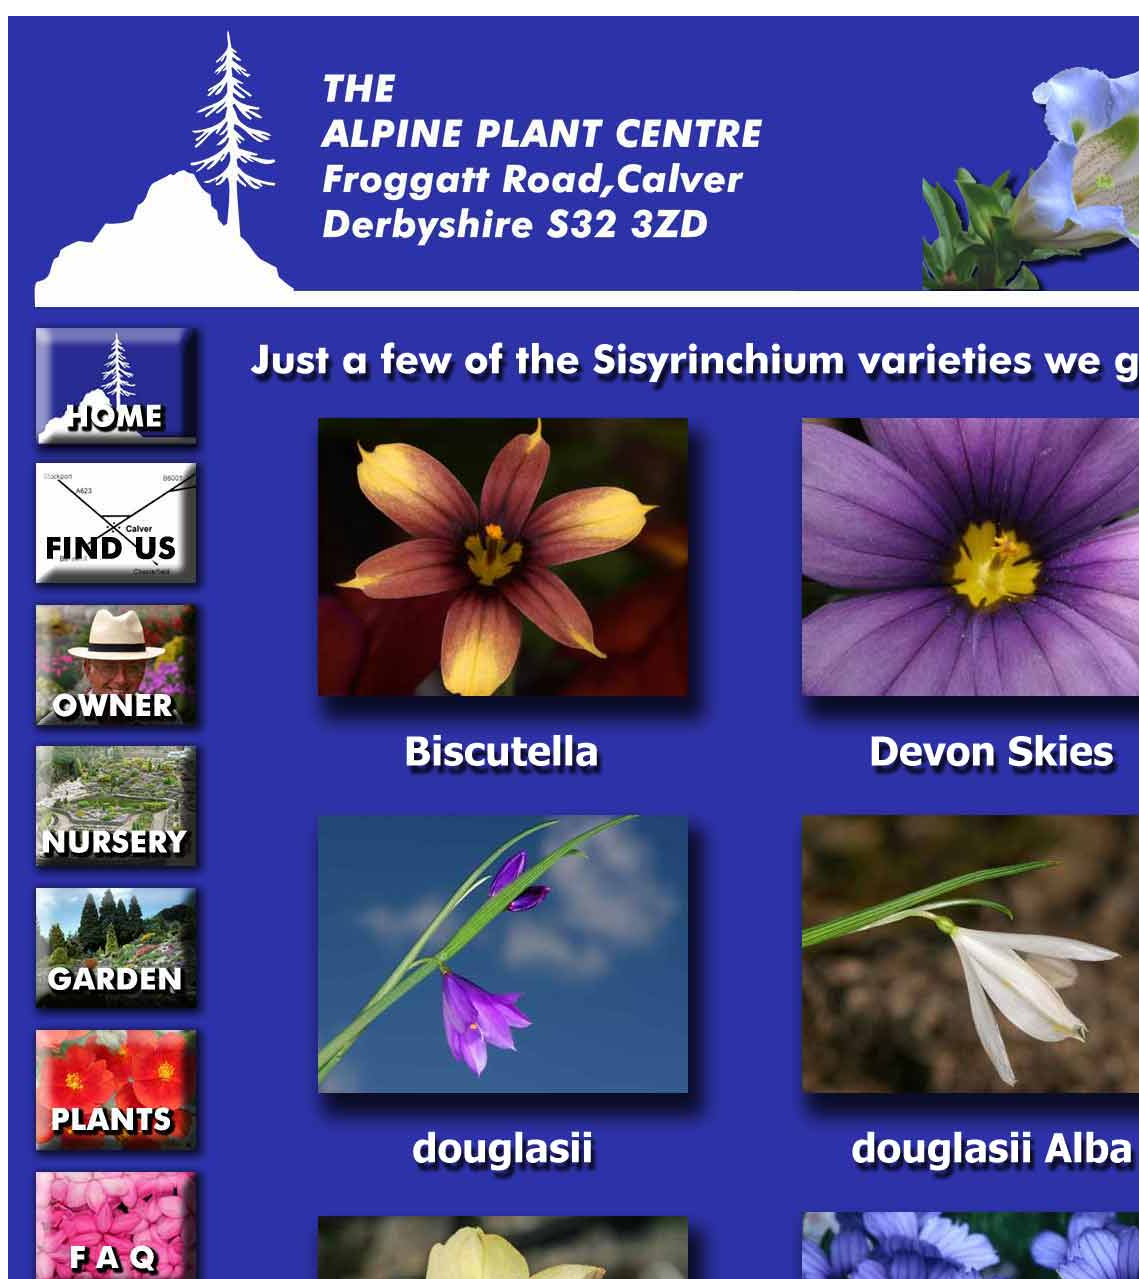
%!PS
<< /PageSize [1139 1279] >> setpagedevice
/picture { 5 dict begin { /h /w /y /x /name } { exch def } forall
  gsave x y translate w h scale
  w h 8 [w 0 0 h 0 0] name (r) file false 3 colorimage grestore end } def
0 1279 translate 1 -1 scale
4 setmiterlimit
1 setgray
0 0 1139 1279 rectfill
(img1.rgb) 8 16 1131 1263 picture
showpage
